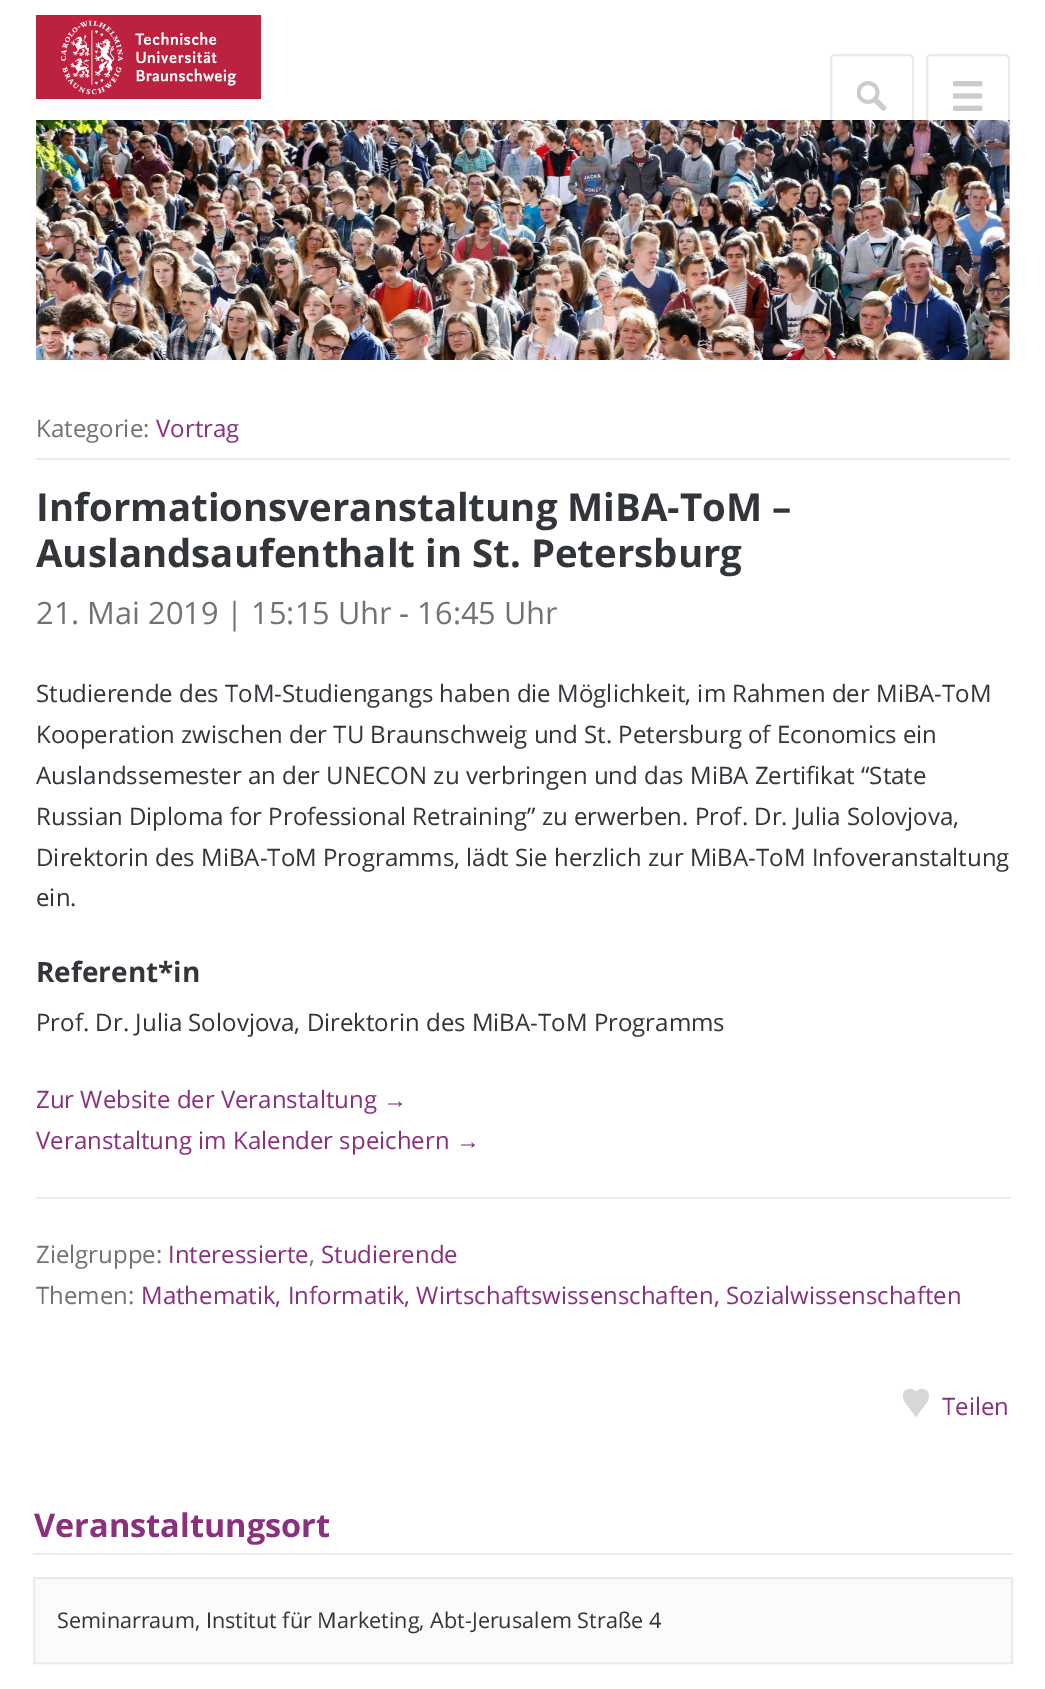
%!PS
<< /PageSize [1045 1689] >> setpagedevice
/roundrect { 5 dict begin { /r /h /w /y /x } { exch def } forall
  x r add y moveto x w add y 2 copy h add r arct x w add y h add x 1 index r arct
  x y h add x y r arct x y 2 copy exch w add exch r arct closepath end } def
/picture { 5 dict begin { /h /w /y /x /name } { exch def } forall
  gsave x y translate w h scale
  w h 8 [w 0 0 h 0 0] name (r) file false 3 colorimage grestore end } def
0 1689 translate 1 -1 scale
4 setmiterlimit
1 setgray
0 0 1045 1689 rectfill
(img1.rgb) 36 15 225 84 picture
(img4.rgb) 953 81 30 30 picture
0.922 setgray
2 setlinewidth
927 55 82 82 4 roundrect stroke
0.839 0.843 0.843 setrgbcolor
1009 120 1 240 rectfill
(img3.rgb) 857 81 30 30 picture
0.922 setgray
831 55 82 82 4 roundrect stroke
(img2.rgb) 36 120 974 240 picture
36 458 974 2 rectfill
/OpenSans-Regular [24 0 0 -24 0 0] selectfont
0.439 0.447 0.455 setrgbcolor
36 437 moveto (Kategorie:) show
0.541 0.188 0.498 setrgbcolor
156 437 moveto (Vortrag) show
/OpenSans-Bold [38.4 0 0 -38.4 0 0] selectfont
0.196 0.208 0.224 setrgbcolor
36 521 moveto (Informationsveranstaltung MiBA-ToM –) show
36 567 moveto (Auslandsaufenthalt in St. Petersburg) show
/OpenSans-Regular [30.75 0 0 -30.75 0 0] selectfont
0.439 0.447 0.455 setrgbcolor
36 624 moveto (21. Mai 2019 | 15:15 Uhr - 16:45 Uhr) show
/OpenSans-Regular [24 0 0 -24 0 0] selectfont
0.196 0.208 0.224 setrgbcolor
36 702 moveto (Studierende des ToM-Studiengangs haben die Möglichkeit, im Rahmen der MiBA-ToM) show
36 743 moveto (Kooperation zwischen der TU Braunschweig und St. Petersburg of Economics ein) show
36 784 moveto (Auslandssemester an der UNECON zu verbringen und das MiBA Zertifikat “State) show
36 825 moveto (Russian Diploma for Professional Retraining” zu erwerben. Prof. Dr. Julia Solovjova,) show
36 866 moveto (Direktorin des MiBA-ToM Programms, lädt Sie herzlich zur MiBA-ToM Infoveranstaltung) show
36 906 moveto (ein.) show
/OpenSans-Bold [28 0 0 -28 0 0] selectfont
36 982 moveto (Referent*in) show
/OpenSans-Regular [24 0 0 -24 0 0] selectfont
36 1031 moveto (Prof. Dr. Julia Solovjova, Direktorin des MiBA-ToM Programms) show
0.541 0.188 0.498 setrgbcolor
36 1108 moveto (Zur Website der Veranstaltung) show
/LiberationSans-Regular [24 0 0 -24 0 0] selectfont
383 1108 moveto (→) show
/OpenSans-Regular [24 0 0 -24 0 0] selectfont
36 1149 moveto (Veranstaltung im Kalender speichern) show
/LiberationSans-Regular [24 0 0 -24 0 0] selectfont
456 1149 moveto (→) show
0.922 setgray
36 1197 974 2 rectfill
/OpenSans-Regular [24 0 0 -24 0 0] selectfont
0.439 0.447 0.455 setrgbcolor
36 1263 moveto (Zielgruppe:) show
0.541 0.188 0.498 setrgbcolor
168 1263 moveto (Interessierte) show
0.439 0.447 0.455 setrgbcolor
309 1263 moveto (,) show
0.541 0.188 0.498 setrgbcolor
321 1263 moveto (Studierende) show
0.439 0.447 0.455 setrgbcolor
36 1304 moveto (Themen:) show
0.541 0.188 0.498 setrgbcolor
141 1304 moveto (Mathematik, Informatik, Wirtschaftswissenschaften, Sozialwissenschaften) show
(img5.rgb) 902 1388 27 30 picture
942 1415 moveto (Teilen) show
0.922 setgray
33 1553 980 2 rectfill
/OpenSans-Bold [32.5 0 0 -32.5 0 0] selectfont
0.541 0.188 0.498 setrgbcolor
34 1537 moveto (Veranstaltungsort) show
0.984 setgray
newpath 34 1578 moveto 1012 1578 lineto 1012 1663 lineto 34 1663 lineto closepath gsave fill grestore
0.922 setgray
stroke
/OpenSans-Regular [21.6 0 0 -21.6 0 0] selectfont
0.196 0.208 0.224 setrgbcolor
57 1628 moveto (Seminarraum, Institut für Marketing, Abt-Jerusalem Straße 4) show
showpage
